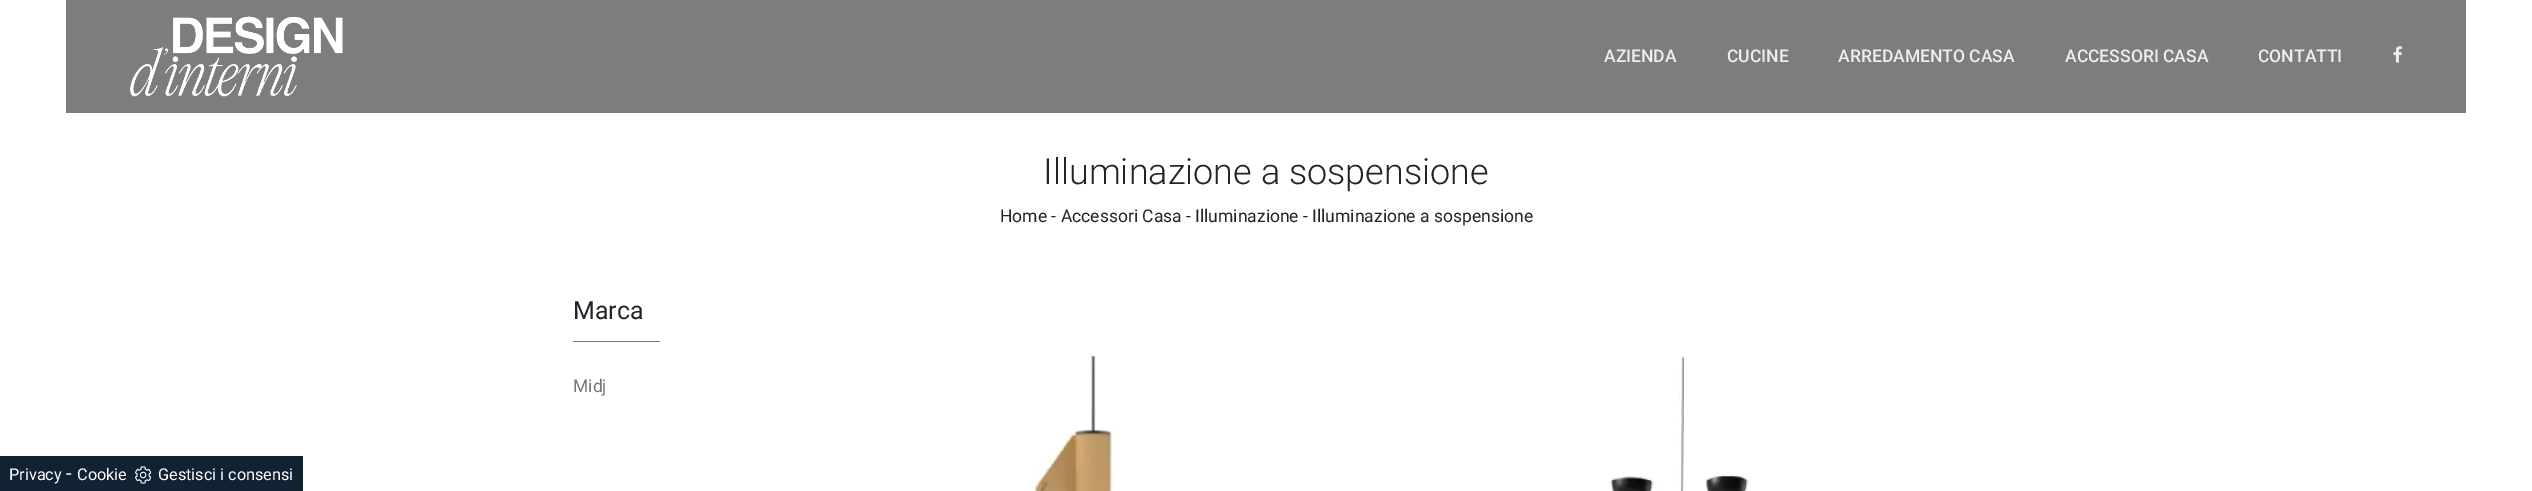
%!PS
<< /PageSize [2532 491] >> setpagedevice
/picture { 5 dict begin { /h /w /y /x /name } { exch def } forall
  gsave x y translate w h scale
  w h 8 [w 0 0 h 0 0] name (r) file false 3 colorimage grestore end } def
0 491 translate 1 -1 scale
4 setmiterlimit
1 setgray
0 0 2532 491 rectfill
0.49 setgray
66 0 2400 113 rectfill
(img1.rgb) 130 16 213 81 picture
/Roboto-Medium [17.5 0 0 -17.5 0 0] selectfont
0.933 setgray
1604 62 moveto (AZIENDA) show
1727 62 moveto (CUCINE) show
1838 62 moveto (ARREDAMENTO CASA) show
2065 62 moveto (ACCESSORI CASA) show
2258 62 moveto (CONTATTI) show
(img2.rgb) 2393 46 9 17 picture
/Roboto-Light [36 0 0 -36 0 0] selectfont
0.129 0.145 0.161 setrgbcolor
1043 184 moveto (Illuminazione a sospensione) show
/Roboto-Regular [17.5 0 0 -17.5 0 0] selectfont
1000 222 moveto (Home - Accessori Casa - Illuminazione - Illuminazione a sospensione) show
/Roboto-Regular [25 0 0 -25 0 0] selectfont
573 319 moveto (Marca) show
0.467 setgray
573 341 87 1 rectfill
/Roboto-Regular [17.5 0 0 -17.5 0 0] selectfont
573 392 moveto (Midj) show
(img3.rgb) 1033 354 84 137 picture
(img4.rgb) 1609 356 140 135 picture
0.067 0.133 0.2 setrgbcolor
0 456 303 35 rectfill
/Roboto-Regular [16.25 0 0 -16.25 0 0] selectfont
1 setgray
9 480 moveto (Privacy) show
/Roboto-Regular [20 0 0 -20 0 0] selectfont
66 480 moveto (-) show
/Roboto-Regular [16.25 0 0 -16.25 0 0] selectfont
77 480 moveto (Cookie) show
(img5.rgb) 135 466 16 18 picture
158 480 moveto (Gestisci i consensi) show
showpage
